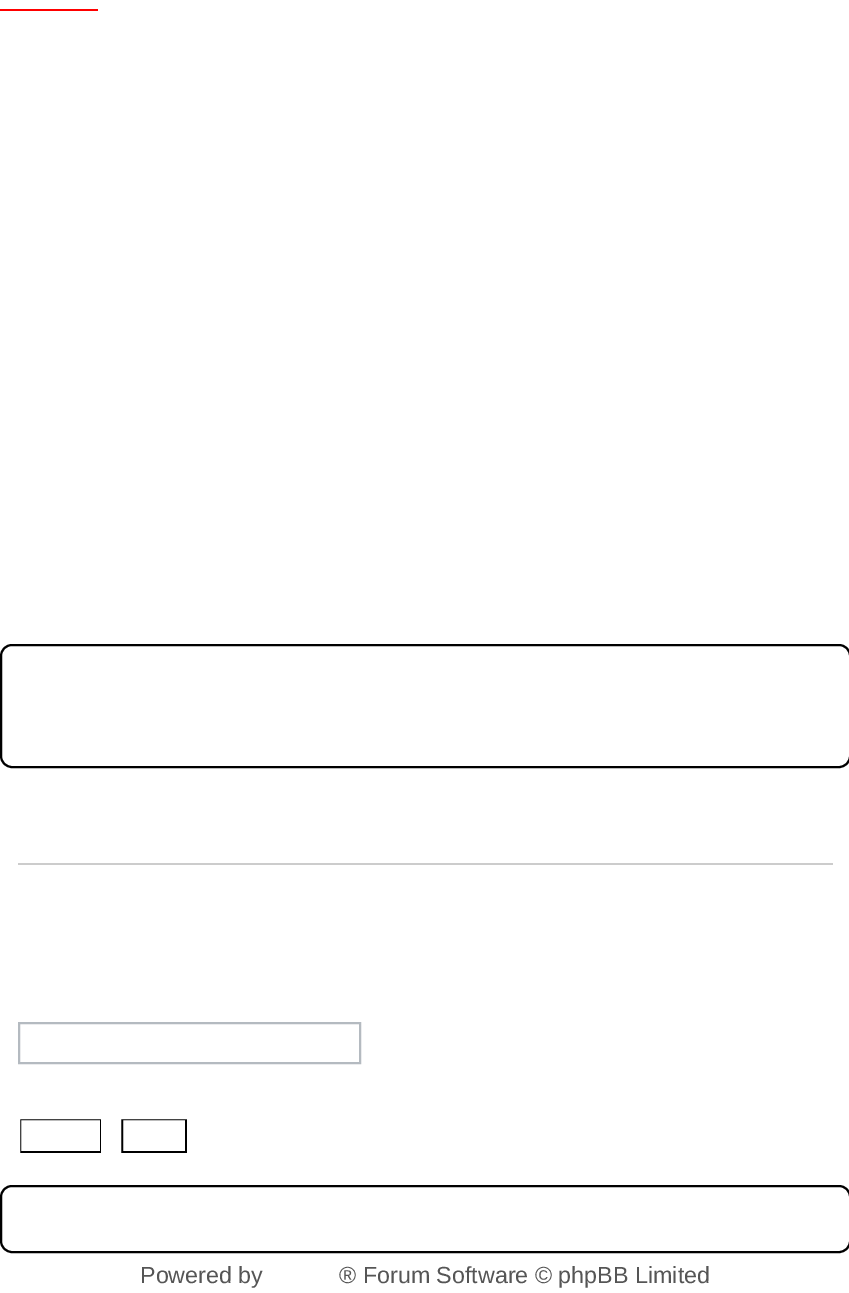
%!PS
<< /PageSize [849 1293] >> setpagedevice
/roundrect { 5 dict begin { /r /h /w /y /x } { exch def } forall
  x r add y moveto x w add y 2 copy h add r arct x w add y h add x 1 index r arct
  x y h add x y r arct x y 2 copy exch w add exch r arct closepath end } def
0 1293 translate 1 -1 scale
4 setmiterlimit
1 setgray
0 0 849 1293 rectfill
1 0 0 setrgbcolor
0 9 98 2 rectfill
0 setgray
2 setlinewidth
1 645 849 122 11 roundrect stroke
0.8 setgray
18 863 815 2 rectfill
0.706 0.729 0.753 setrgbcolor
19 1023 341 40 rectstroke
0 setgray
20 1119 81 33 rectstroke
1 setgray
19 1118 83 36 rectstroke
0 setgray
122 1119 64 33 rectstroke
1 setgray
120 1118 68 36 rectstroke
0 setgray
1 1186 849 66 11 roundrect stroke
/LiberationSans-Regular [23.3 0 0 -23.3 0 0] selectfont
0.333 setgray
140 1283 moveto (Powered by) show
339 1283 moveto (® Forum Software © phpBB Limited) show
showpage
